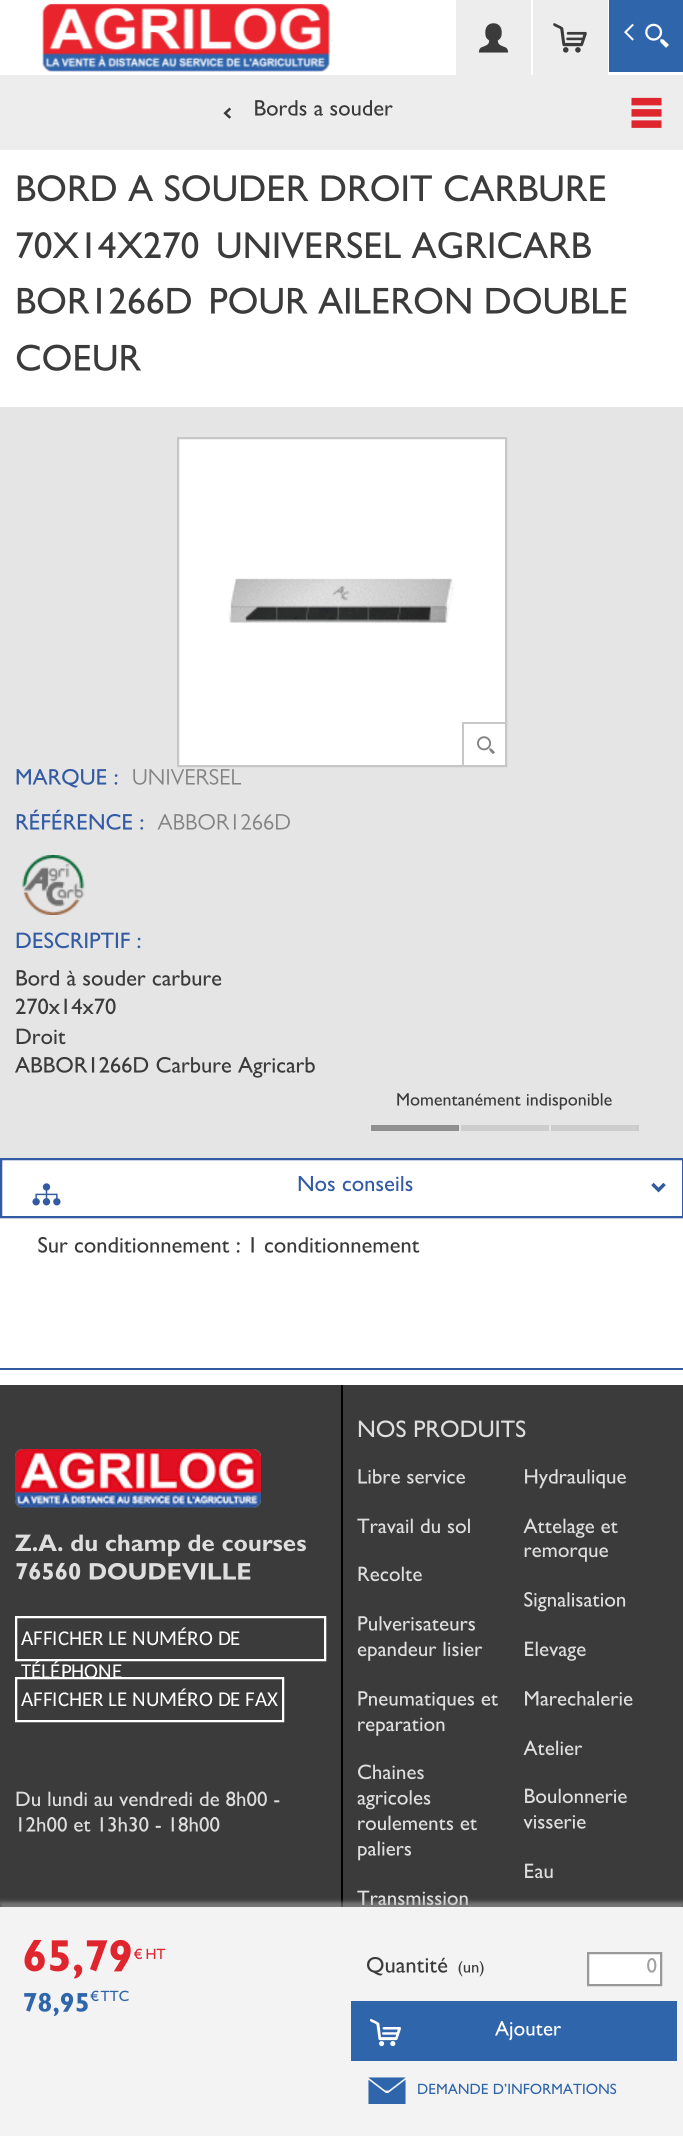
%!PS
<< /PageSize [683 2136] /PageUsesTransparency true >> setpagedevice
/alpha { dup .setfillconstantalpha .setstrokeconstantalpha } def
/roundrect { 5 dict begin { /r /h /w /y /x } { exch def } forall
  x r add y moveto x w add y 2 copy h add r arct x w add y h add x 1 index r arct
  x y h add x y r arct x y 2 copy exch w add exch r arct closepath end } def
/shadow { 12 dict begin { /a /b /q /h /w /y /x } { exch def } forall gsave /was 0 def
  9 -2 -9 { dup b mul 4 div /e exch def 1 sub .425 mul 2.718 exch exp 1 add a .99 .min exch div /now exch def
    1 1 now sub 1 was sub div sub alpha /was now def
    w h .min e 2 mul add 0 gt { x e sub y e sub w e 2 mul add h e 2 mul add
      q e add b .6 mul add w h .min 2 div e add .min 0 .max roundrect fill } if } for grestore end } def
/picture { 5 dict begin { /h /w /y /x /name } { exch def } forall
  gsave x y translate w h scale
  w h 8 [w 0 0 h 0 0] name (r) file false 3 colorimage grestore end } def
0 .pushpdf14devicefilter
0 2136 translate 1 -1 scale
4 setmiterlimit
1 setgray
0 0 683 2136 rectfill
(img1.rgb) 42 3 288 69 picture
(img2.rgb) 331 39 1 2 picture
0.929 setgray
456 0 75 75 rectfill
(img3.rgb) 478 23 31 30 picture
533 0 75 75 rectfill
(img4.rgb) 553 23 34 30 picture
0.184 0.396 0.671 setrgbcolor
609 0 74 72 rectfill
(img5.rgb) 624 23 45 25 picture
0.929 setgray
0 75 683 75 rectfill
(img6.rgb) 223 107 8 12 picture
(img7.rgb) 255 100 138 16 picture
(img8.rgb) 631 97 31 31 picture
(img9.rgb) 17 175 589 27 picture
(img10.rgb) 16 232 183 27 picture
(img11.rgb) 218 232 373 27 picture
(img12.rgb) 17 287 174 27 picture
(img13.rgb) 211 287 416 27 picture
(img14.rgb) 16 344 125 27 picture
0.898 setgray
0 407 683 751 rectfill
1 setgray
newpath 178 438 moveto 506 438 lineto 506 766 lineto 178 766 lineto closepath gsave fill grestore
0.78 setgray
2 setlinewidth
stroke
(img15.rgb) 229 578 226 46 picture
462 722 45 2 rectfill
462 722 2 45 rectfill
(img16.rgb) 477 736 18 18 picture
(img17.rgb) 16 769 102 19 picture
(img18.rgb) 133 769 109 16 picture
(img19.rgb) 16 809 128 21 picture
(img20.rgb) 157 814 133 16 picture
(img21.rgb) 22 855 63 60 picture
(img22.rgb) 16 932 125 17 picture
(img23.rgb) 16 970 206 16 picture
(img24.rgb) 15 998 101 17 picture
(img25.rgb) 16 1028 50 17 picture
(img26.rgb) 15 1056 300 22 picture
(img27.rgb) 397 1093 215 17 picture
0.561 setgray
371 1125 88 6 rectfill
0.804 setgray
461 1125 88 6 rectfill
551 1125 88 6 rectfill
0.231 setgray
0 1385 683 522 rectfill
0 setgray
341 1385 2 522 rectfill
(img76.rgb) 357 1890 111 16 picture
0.714 setgray
0 1902 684 230 0 2 0.5 shadow
0.953 setgray
0 1907 683 229 rectfill
(img28.rgb) 24 1939 45 33 picture
(img29.rgb) 86 1939 45 33 picture
(img30.rgb) 134 1948 8 12 picture
(img31.rgb) 146 1948 20 11 picture
(img32.rgb) 74 1964 9 15 picture
(img33.rgb) 24 1992 27 20 picture
(img34.rgb) 53 2007 6 9 picture
(img35.rgb) 60 1992 28 20 picture
(img36.rgb) 90 1990 9 12 picture
(img37.rgb) 100 1990 29 12 picture
(img38.rgb) 367 1957 81 19 picture
(img39.rgb) 458 1961 26 16 picture
1 setgray
newpath 588 1953 moveto 661 1953 lineto 661 1985 lineto 588 1985 lineto closepath gsave fill grestore
0.6 setgray
stroke
(img40.rgb) 647 1958 10 15 picture
0.184 0.396 0.671 setrgbcolor
351 2001 326 60 rectfill
(img41.rgb) 370 2018 31 29 picture
(img42.rgb) 495 2021 66 20 picture
newpath 385.5 2090.5 moveto 368.5 2077.5 lineto 405.5 2077.5 lineto 388.5 2090.5 lineto closepath 368.5 2104 moveto 368.5 2080 lineto 385.5 2093 lineto 388.5 2093 lineto 405.5 2080 lineto 405.5 2104 lineto closepath fill
(img43.rgb) 418 2083 199 12 picture
0.98 setgray
0 1218 683 2 rectfill
0.2 0.357 0.639 setrgbcolor
1 1159 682 58 rectstroke
(img44.rgb) 32 1183 29 23 picture
(img45.rgb) 298 1176 115 16 picture
(img46.rgb) 651 1182 15 11 picture
0 1368 683 2 rectfill
(img47.rgb) 38 1237 216 16 picture
(img48.rgb) 264 1237 156 16 picture
(img49.rgb) 15 1449 246 59 picture
(img50.rgb) 15 1534 291 23 picture
(img51.rgb) 16 1562 235 18 picture
1 setgray
16 1617 309 43 rectstroke
/Carlito-Regular [21 0 0 -21 0 0] selectfont
21 1645 moveto (AFFICHER LE NUMÉRO DE) show
21 1678 moveto (TÉLÉPHONE) show
16 1678 267 43 rectstroke
21 1706 moveto (AFFICHER LE NUMÉRO DE FAX) show
(img52.rgb) 16 1791 264 16 picture
(img53.rgb) 19 1817 201 15 picture
(img54.rgb) 358 1420 168 18 picture
(img55.rgb) 358 1469 107 15 picture
(img56.rgb) 525 1469 101 20 picture
(img57.rgb) 357 1518 113 16 picture
(img58.rgb) 523 1518 95 20 picture
(img59.rgb) 524 1547 84 15 picture
(img60.rgb) 358 1566 64 16 picture
(img61.rgb) 524 1592 102 20 picture
(img62.rgb) 358 1616 117 15 picture
(img63.rgb) 357 1641 126 20 picture
(img64.rgb) 525 1641 61 20 picture
(img65.rgb) 358 1691 140 20 picture
(img66.rgb) 358 1717 87 19 picture
(img67.rgb) 525 1691 108 15 picture
(img68.rgb) 523 1740 60 16 picture
(img69.rgb) 358 1764 66 16 picture
(img70.rgb) 357 1790 74 20 picture
(img71.rgb) 358 1815 119 16 picture
(img72.rgb) 358 1841 53 20 picture
(img73.rgb) 525 1788 102 16 picture
(img74.rgb) 523 1815 63 14 picture
(img75.rgb) 525 1863 28 16 picture
.poppdf14devicefilter showpage
